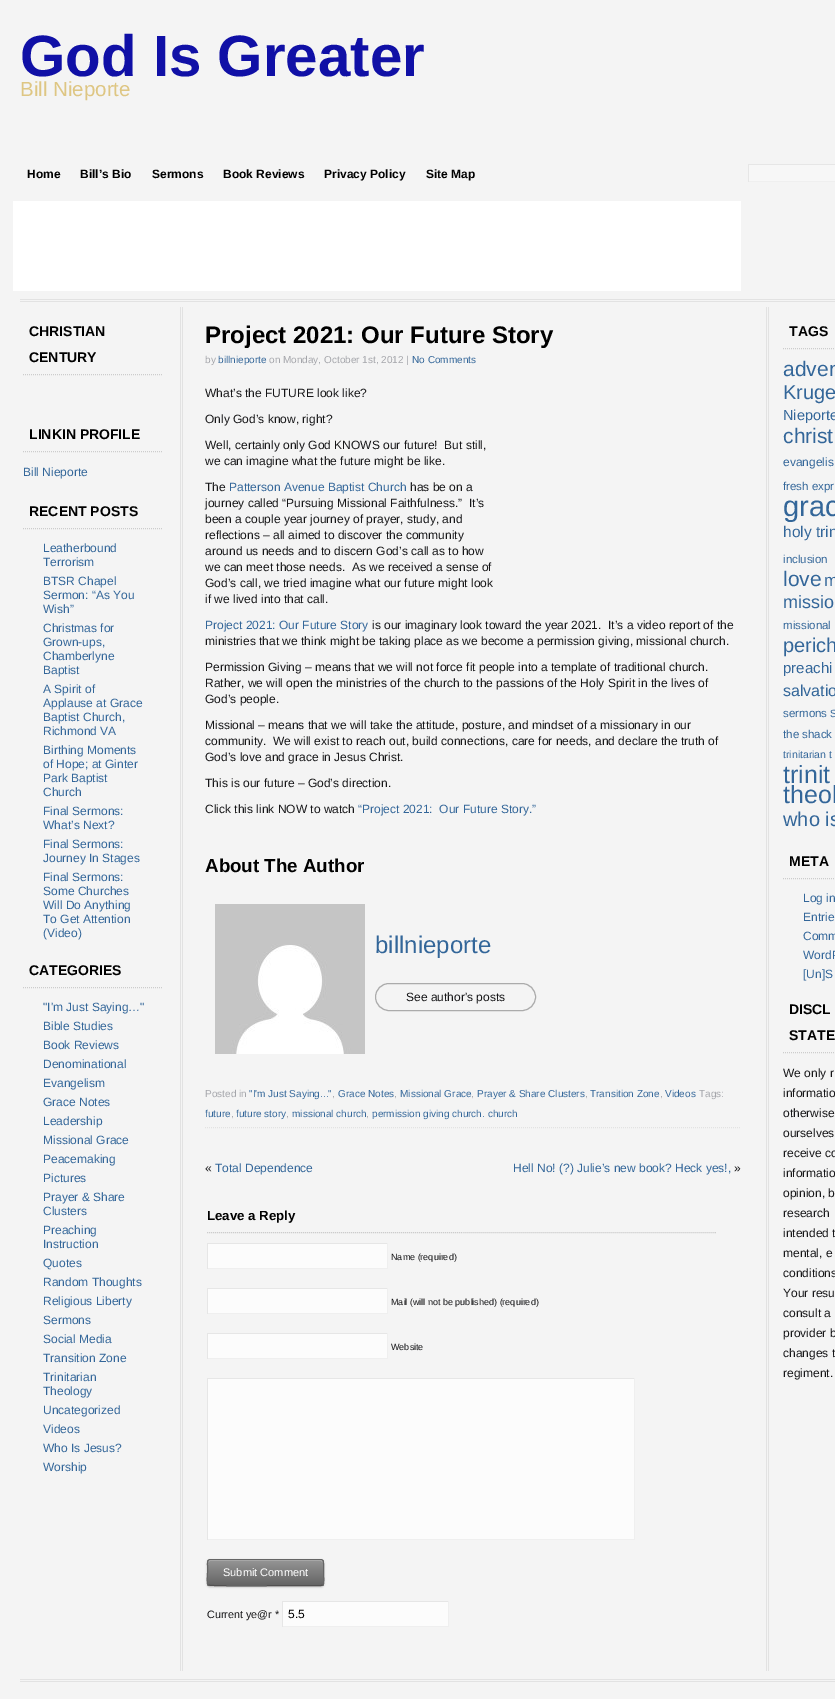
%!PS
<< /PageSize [835 1699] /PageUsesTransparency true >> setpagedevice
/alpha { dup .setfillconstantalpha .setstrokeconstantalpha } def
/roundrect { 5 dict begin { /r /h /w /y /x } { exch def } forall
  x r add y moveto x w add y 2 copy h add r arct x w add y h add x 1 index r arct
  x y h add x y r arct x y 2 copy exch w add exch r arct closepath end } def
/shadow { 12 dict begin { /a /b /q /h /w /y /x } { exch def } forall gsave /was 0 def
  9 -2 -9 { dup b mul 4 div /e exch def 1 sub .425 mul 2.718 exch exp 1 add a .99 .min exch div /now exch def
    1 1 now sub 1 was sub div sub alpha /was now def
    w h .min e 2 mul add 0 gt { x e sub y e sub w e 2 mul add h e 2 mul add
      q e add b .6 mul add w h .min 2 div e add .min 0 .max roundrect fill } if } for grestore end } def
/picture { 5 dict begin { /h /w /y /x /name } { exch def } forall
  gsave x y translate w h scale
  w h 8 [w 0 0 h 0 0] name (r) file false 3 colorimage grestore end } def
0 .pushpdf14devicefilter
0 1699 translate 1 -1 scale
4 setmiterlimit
0.957 setgray
0 0 835 1699 rectfill
/LiberationSans-Bold [58.25 0 0 -58.25 0 0] selectfont
0.063 0.063 0.651 setrgbcolor
20 76 moveto (God Is Greater) show
/LiberationSans-Regular [20.5 0 0 -20.5 0 0] selectfont
0.871 0.776 0.514 setrgbcolor
20 96 moveto (Bill Nieporte) show
/LiberationSans-Bold [12 0 0 -12 0 0] selectfont
0 setgray
27 178 moveto (Home) show
80 178 moveto (Bill’s Bio) show
152 178 moveto (Sermons) show
223 178 moveto (Book Reviews) show
324 178 moveto (Privacy Policy) show
426 178 moveto (Site Map) show
0.969 setgray
749 165 86 16 rectfill
0.902 setgray
748 164 87 1 rectfill
0.937 setgray
748 181 87 1 rectfill
0.902 setgray
748 164 1 18 rectfill
1 setgray
13 201 728 90 rectfill
0.886 setgray
20 299 815 1 rectfill
20 301 815 1 rectfill
0.8 setgray
[1 1] 0 setdash
newpath 23 374.5 moveto 163 374.5 lineto stroke
/LiberationSans-Bold [14 0 0 -14 0 0] selectfont
0 setgray
29 336 moveto (CHRISTIAN) show
29 362 moveto (CENTURY) show
0.8 setgray
newpath 23 451.5 moveto 163 451.5 lineto stroke
0 setgray
29 439 moveto (LINKIN PROFILE) show
/LiberationSans-Regular [12 0 0 -12 0 0] selectfont
0.2 0.4 0.6 setrgbcolor
23 476 moveto (Bill Nieporte) show
0.8 setgray
newpath 23 528.5 moveto 163 528.5 lineto stroke
/LiberationSans-Bold [14 0 0 -14 0 0] selectfont
0 setgray
29 516 moveto (RECENT POSTS) show
/LiberationSans-Regular [12 0 0 -12 0 0] selectfont
0.2 0.4 0.6 setrgbcolor
43 552 moveto (Leatherbound) show
43 566 moveto (Terrorism) show
43 585 moveto (BTSR Chapel) show
43 599 moveto (Sermon: “As You) show
43 613 moveto (Wish”) show
43 632 moveto (Christmas for) show
43 646 moveto (Grown-ups,) show
43 660 moveto (Chamberlyne) show
43 674 moveto (Baptist) show
43 693 moveto (A Spirit of) show
43 707 moveto (Applause at Grace) show
43 721 moveto (Baptist Church,) show
43 735 moveto (Richmond VA) show
43 754 moveto (Birthing Moments) show
43 768 moveto (of Hope; at Ginter) show
43 782 moveto (Park Baptist) show
43 796 moveto (Church) show
43 815 moveto (Final Sermons:) show
43 829 moveto (What’s Next?) show
43 848 moveto (Final Sermons:) show
43 862 moveto (Journey In Stages) show
43 881 moveto (Final Sermons:) show
43 895 moveto (Some Churches) show
43 909 moveto (Will Do Anything) show
43 923 moveto (To Get Attention) show
43 937 moveto (\(Video\)) show
0.8 setgray
newpath 23 987.5 moveto 163 987.5 lineto stroke
/LiberationSans-Bold [14 0 0 -14 0 0] selectfont
0 setgray
29 975 moveto (CATEGORIES) show
/LiberationSans-Regular [12 0 0 -12 0 0] selectfont
0.2 0.4 0.6 setrgbcolor
43 1011 moveto ("I'm Just Saying…") show
43 1030 moveto (Bible Studies) show
43 1049 moveto (Book Reviews) show
43 1068 moveto (Denominational) show
43 1087 moveto (Evangelism) show
43 1106 moveto (Grace Notes) show
43 1125 moveto (Leadership) show
43 1144 moveto (Missional Grace) show
43 1163 moveto (Peacemaking) show
43 1182 moveto (Pictures) show
43 1201 moveto (Prayer & Share) show
43 1215 moveto (Clusters) show
43 1234 moveto (Preaching) show
43 1248 moveto (Instruction) show
43 1267 moveto (Quotes) show
43 1286 moveto (Random Thoughts) show
43 1305 moveto (Religious Liberty) show
43 1324 moveto (Sermons) show
43 1343 moveto (Social Media) show
43 1362 moveto (Transition Zone) show
43 1381 moveto (Trinitarian) show
43 1395 moveto (Theology) show
43 1414 moveto (Uncategorized) show
43 1433 moveto (Videos) show
43 1452 moveto (Who Is Jesus?) show
43 1471 moveto (Worship) show
0.886 setgray
766 307 1 1364 rectfill
768 307 1 1364 rectfill
180 307 1 1364 rectfill
182 307 1 1364 rectfill
/LiberationSans-Bold [24 0 0 -24 0 0] selectfont
0 setgray
205 343 moveto (Project 2021: Our Future Story) show
/LiberationSans-Regular [10 0 0 -10 0 0] selectfont
0.643 0.647 0.667 setrgbcolor
205 363 moveto (by) show
0.2 0.4 0.6 setrgbcolor
218 363 moveto (billnieporte) show
0.643 0.647 0.667 setrgbcolor
269 363 moveto (on Monday, October 1st, 2012 |) show
0.2 0.4 0.6 setrgbcolor
412 363 moveto (No Comments) show
/LiberationSans-Regular [12 0 0 -12 0 0] selectfont
0.086 0.086 0.094 setrgbcolor
205 397 moveto (What’s the FUTURE look like?) show
205 423 moveto (Only God’s know, right?) show
205 449 moveto (Well, certainly only God KNOWS our future!  But still,) show
205 465 moveto (we can imagine what the future might be like.) show
205 491 moveto (The) show
0.2 0.4 0.6 setrgbcolor
229 491 moveto (Patterson Avenue Baptist Church) show
0.086 0.086 0.094 setrgbcolor
410 491 moveto (has be on a) show
205 507 moveto (journey called “Pursuing Missional Faithfulness.”  It’s) show
205 523 moveto (been a couple year journey of prayer, study, and) show
205 539 moveto (reflections – all aimed to discover the community) show
205 555 moveto (around us needs and to discern God’s call as to how) show
205 571 moveto (we can meet those needs.  As we received a sense of) show
205 587 moveto (God’s call, we tried imagine what our future might look) show
205 603 moveto (if we lived into that call.) show
0.2 0.4 0.6 setrgbcolor
205 629 moveto (Project 2021: Our Future Story) show
0.086 0.086 0.094 setrgbcolor
372 629 moveto (is our imaginary look toward the year 2021.  It’s a video report of the) show
205 645 moveto (ministries that we think might be taking place as we become a permission giving, missional church.) show
205 671 moveto (Permission Giving – means that we will not force fit people into a template of traditional church.) show
205 687 moveto (Rather, we will open the ministries of the church to the passions of the Holy Spirit in the lives of) show
205 703 moveto (God’s people.) show
205 729 moveto (Missional – means that we will take the attitude, posture, and mindset of a missionary in our) show
205 745 moveto (community.  We will exist to reach out, build connections, care for needs, and declare the truth of) show
205 761 moveto (God’s love and grace in Jesus Christ.) show
205 787 moveto (This is our future – God’s direction.) show
205 813 moveto (Click this link NOW to watch) show
0.2 0.4 0.6 setrgbcolor
358 813 moveto (“Project 2021:  Our Future Story.”) show
/LiberationSans-Bold [18.75 0 0 -18.75 0 0] selectfont
0 setgray
205 872 moveto (About The Author) show
(img1.rgb) 215 904 150 150 picture
/LiberationSans-Regular [24 0 0 -24 0 0] selectfont
0.2 0.4 0.6 setrgbcolor
375 953 moveto (billnieporte) show
0.671 setgray
[] 0 setdash
375.5 983.5 160 27 13.5 roundrect stroke
/LiberationSans-Regular [12 0 0 -12 0 0] selectfont
0.086 0.086 0.094 setrgbcolor
406 1001 moveto (See author's posts) show
0.886 setgray
[1 1] 0 setdash
newpath 205 1127.5 moveto 741 1127.5 lineto stroke
/LiberationSans-Regular [10 0 0 -10 0 0] selectfont
0.643 0.647 0.667 setrgbcolor
205 1097 moveto (Posted in) show
0.2 0.4 0.6 setrgbcolor
249 1097 moveto ("I'm Just Saying...") show
0.643 0.647 0.667 setrgbcolor
332 1097 moveto (,) show
0.2 0.4 0.6 setrgbcolor
338 1097 moveto (Grace Notes) show
0.643 0.647 0.667 setrgbcolor
394 1097 moveto (,) show
0.2 0.4 0.6 setrgbcolor
400 1097 moveto (Missional Grace) show
0.643 0.647 0.667 setrgbcolor
471 1097 moveto (,) show
0.2 0.4 0.6 setrgbcolor
477 1097 moveto (Prayer & Share Clusters) show
0.643 0.647 0.667 setrgbcolor
585 1097 moveto (,) show
0.2 0.4 0.6 setrgbcolor
590 1097 moveto (Transition Zone) show
0.643 0.647 0.667 setrgbcolor
660 1097 moveto (,) show
0.2 0.4 0.6 setrgbcolor
665 1097 moveto (Videos) show
0.643 0.647 0.667 setrgbcolor
699 1097 moveto (Tags:) show
0.2 0.4 0.6 setrgbcolor
205 1117 moveto (future) show
0.643 0.647 0.667 setrgbcolor
231 1117 moveto (,) show
0.2 0.4 0.6 setrgbcolor
236 1117 moveto (future story) show
0.643 0.647 0.667 setrgbcolor
286 1117 moveto (,) show
0.2 0.4 0.6 setrgbcolor
292 1117 moveto (missional church) show
0.643 0.647 0.667 setrgbcolor
366 1117 moveto (,) show
0.2 0.4 0.6 setrgbcolor
372 1117 moveto (permission giving church. church) show
/LiberationSans-Regular [12 0 0 -12 0 0] selectfont
0.086 0.086 0.094 setrgbcolor
205 1172 moveto («) show
0.2 0.4 0.6 setrgbcolor
215 1172 moveto (Total Dependence) show
513 1172 moveto (Hell No! \(?\) Julie’s new book? Heck yes!,) show
0.086 0.086 0.094 setrgbcolor
734 1172 moveto (») show
0.8 setgray
newpath 207 1232.5 moveto 716 1232.5 lineto stroke
/LiberationSans-Bold [13.25 0 0 -13.25 0 0] selectfont
0 setgray
207 1220 moveto (Leave a Reply) show
0.988 setgray
208 1244 179 24 rectfill
0.902 setgray
207 1243 181 1 rectfill
0.937 setgray
387 1243 1 26 rectfill
207 1268 181 1 rectfill
0.902 setgray
207 1243 1 26 rectfill
/LiberationSans-Regular [9 0 0 -9 0 0] selectfont
0.086 0.086 0.094 setrgbcolor
391 1260 moveto (Name \(required\)) show
0.988 setgray
208 1289 179 24 rectfill
0.902 setgray
207 1288 181 1 rectfill
0.937 setgray
387 1288 1 26 rectfill
207 1313 181 1 rectfill
0.902 setgray
207 1288 1 26 rectfill
0.086 0.086 0.094 setrgbcolor
391 1305 moveto (Mail \(will not be published\) \(required\)) show
0.988 setgray
208 1334 179 24 rectfill
0.902 setgray
207 1333 181 1 rectfill
0.937 setgray
387 1333 1 26 rectfill
207 1358 181 1 rectfill
0.902 setgray
207 1333 1 26 rectfill
0.086 0.086 0.094 setrgbcolor
391 1350 moveto (Website) show
0.988 setgray
208 1379 426 160 rectfill
0.902 setgray
207 1378 428 1 rectfill
0.937 setgray
634 1378 1 162 rectfill
207 1539 428 1 rectfill
0.902 setgray
207 1378 1 162 rectfill
0.702 setgray
207 1560 117 27 3 1 1 shadow
gsave
207 1559 117 27 3 roundrect clip newpath
gsave newpath 207 1560 moveto 324 1560 lineto 324 1585 lineto 207 1585 lineto closepath clip newpath
<< /ShadingType 2 /ColorSpace /DeviceRGB /Coords [208 1560 208 1585] /Extend [true true] /Function << /FunctionType 2 /Domain [0 1] /C0 [0.584 0.584 0.584] /C1 [0.396 0.396 0.396] /N 1 >> >> shfill grestore
gsave newpath 207 1585 moveto 324 1585 lineto 324 1586 lineto 207 1586 lineto closepath clip newpath
<< /ShadingType 2 /ColorSpace /DeviceRGB /Coords [208 1585 208 1610] /Extend [true true] /Function << /FunctionType 2 /Domain [0 1] /C0 [0.584 0.584 0.584] /C1 [0.396 0.396 0.396] /N 1 >> >> shfill grestore
grestore
0.749 setgray
newpath 210 1561 moveto 321 1561 lineto 322 1561 323 1562 323 1563 curveto 323 1562 323 1560 321 1560 curveto 210 1560 lineto 208 1560 208 1562 208 1563 curveto 208 1562 209 1561 210 1561 curveto closepath fill
0.322 0.318 0.318 setrgbcolor
[] 0 setdash
newpath 323 1585 moveto 321 1585.5 lineto 302.5 1585.5 lineto 293 1585.5 210.5 1586.5 208.5 1585 curveto 208 1585 lineto stroke
0.396 setgray
newpath 208 1585 moveto 206.5 1583 207.5 1575 207.5 1572.5 curveto 207.5 1565.5 lineto 207.5 1563.5 207 1559.5 210 1559.5 curveto 321 1559.5 lineto 324 1559.5 323.5 1563.5 323.5 1565.5 curveto 323.5 1572.5 lineto 323.5 1575 324.5 1583 323 1585 curveto stroke
/LiberationSans-Regular [11 0 0 -11 0 0] selectfont
1 setgray
223 1576 moveto (Submit Comment) show
/LiberationSans-Regular [10.75 0 0 -10.75 0 0] selectfont
0.086 0.086 0.094 setrgbcolor
207 1618 moveto (Current ye@r *) show
0.988 setgray
283 1602 165 24 rectfill
0.902 setgray
282 1601 167 1 rectfill
0.937 setgray
448 1601 1 26 rectfill
282 1626 167 1 rectfill
0.902 setgray
282 1601 1 26 rectfill
/LiberationSans-Regular [12 0 0 -12 0 0] selectfont
0 setgray
288 1618 moveto (5.5) show
0.8 setgray
[1 1] 0 setdash
newpath 783 348.5 moveto 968 348.5 lineto stroke
/LiberationSans-Bold [14 0 0 -14 0 0] selectfont
0 setgray
789 336 moveto (TAGS) show
/LiberationSans-Regular [21 0 0 -21 0 0] selectfont
0.2 0.4 0.6 setrgbcolor
783 376 moveto (adven) show
/LiberationSans-Regular [20 0 0 -20 0 0] selectfont
783 399 moveto (Kruge) show
/LiberationSans-Regular [14.5 0 0 -14.5 0 0] selectfont
783 420 moveto (Nieporte) show
/LiberationSans-Regular [21 0 0 -21 0 0] selectfont
783 443 moveto (christ) show
/LiberationSans-Regular [12 0 0 -12 0 0] selectfont
783 466 moveto (evangelis) show
/LiberationSans-Regular [11.5 0 0 -11.5 0 0] selectfont
783 490 moveto (fresh expr) show
/LiberationSans-Regular [29 0 0 -29 0 0] selectfont
783 516 moveto (grac) show
/LiberationSans-Regular [15.5 0 0 -15.5 0 0] selectfont
783 537 moveto (holy trin) show
/LiberationSans-Regular [11.5 0 0 -11.5 0 0] selectfont
783 563 moveto (inclusion) show
/LiberationSans-Regular [21 0 0 -21 0 0] selectfont
783 586 moveto (love) show
/LiberationSans-Regular [17 0 0 -17 0 0] selectfont
824 586 moveto (m) show
/LiberationSans-Regular [18 0 0 -18 0 0] selectfont
783 608 moveto (missio) show
/LiberationSans-Regular [11.5 0 0 -11.5 0 0] selectfont
783 629 moveto (missional) show
/LiberationSans-Regular [20 0 0 -20 0 0] selectfont
783 652 moveto (perich) show
/LiberationSans-Regular [15 0 0 -15 0 0] selectfont
783 673 moveto (preachi) show
/LiberationSans-Regular [16 0 0 -16 0 0] selectfont
783 696 moveto (salvatio) show
/LiberationSans-Regular [11.5 0 0 -11.5 0 0] selectfont
783 717 moveto (sermons) show
/LiberationSans-Regular [10.5 0 0 -10.5 0 0] selectfont
830 717 moveto (S) show
/LiberationSans-Regular [11.5 0 0 -11.5 0 0] selectfont
783 738 moveto (the shack) show
/LiberationSans-Regular [10.5 0 0 -10.5 0 0] selectfont
783 758 moveto (trinitarian t) show
/LiberationSans-Regular [25 0 0 -25 0 0] selectfont
783 783 moveto (trinit) show
783 803 moveto (theol) show
/LiberationSans-Regular [20 0 0 -20 0 0] selectfont
783 826 moveto (who is) show
0.8 setgray
newpath 783 878.5 moveto 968 878.5 lineto stroke
/LiberationSans-Bold [14 0 0 -14 0 0] selectfont
0 setgray
789 866 moveto (META) show
/LiberationSans-Regular [12 0 0 -12 0 0] selectfont
0.2 0.4 0.6 setrgbcolor
803 902 moveto (Log in) show
803 921 moveto (Entrie) show
803 940 moveto (Comm) show
803 959 moveto (WordP) show
803 978 moveto ([Un]S) show
0.8 setgray
newpath 783 1052.5 moveto 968 1052.5 lineto stroke
/LiberationSans-Bold [14 0 0 -14 0 0] selectfont
0 setgray
789 1014 moveto (DISCL) show
789 1040 moveto (STATE) show
/LiberationSans-Regular [12 0 0 -12 0 0] selectfont
0.086 0.086 0.094 setrgbcolor
783 1077 moveto (We only r) show
783 1097 moveto (informatio) show
783 1117 moveto (otherwise) show
783 1137 moveto (ourselves) show
783 1157 moveto (receive co) show
783 1177 moveto (informatio) show
783 1197 moveto (opinion, b) show
783 1217 moveto (research) show
783 1237 moveto (intended t) show
783 1257 moveto (mental, e) show
783 1277 moveto (conditions) show
783 1297 moveto (Your resu) show
783 1317 moveto (consult a) show
783 1337 moveto (provider b) show
783 1357 moveto (changes t) show
783 1377 moveto (regiment.) show
0.886 setgray
20 1679 815 1 rectfill
20 1681 815 1 rectfill
.poppdf14devicefilter showpage
